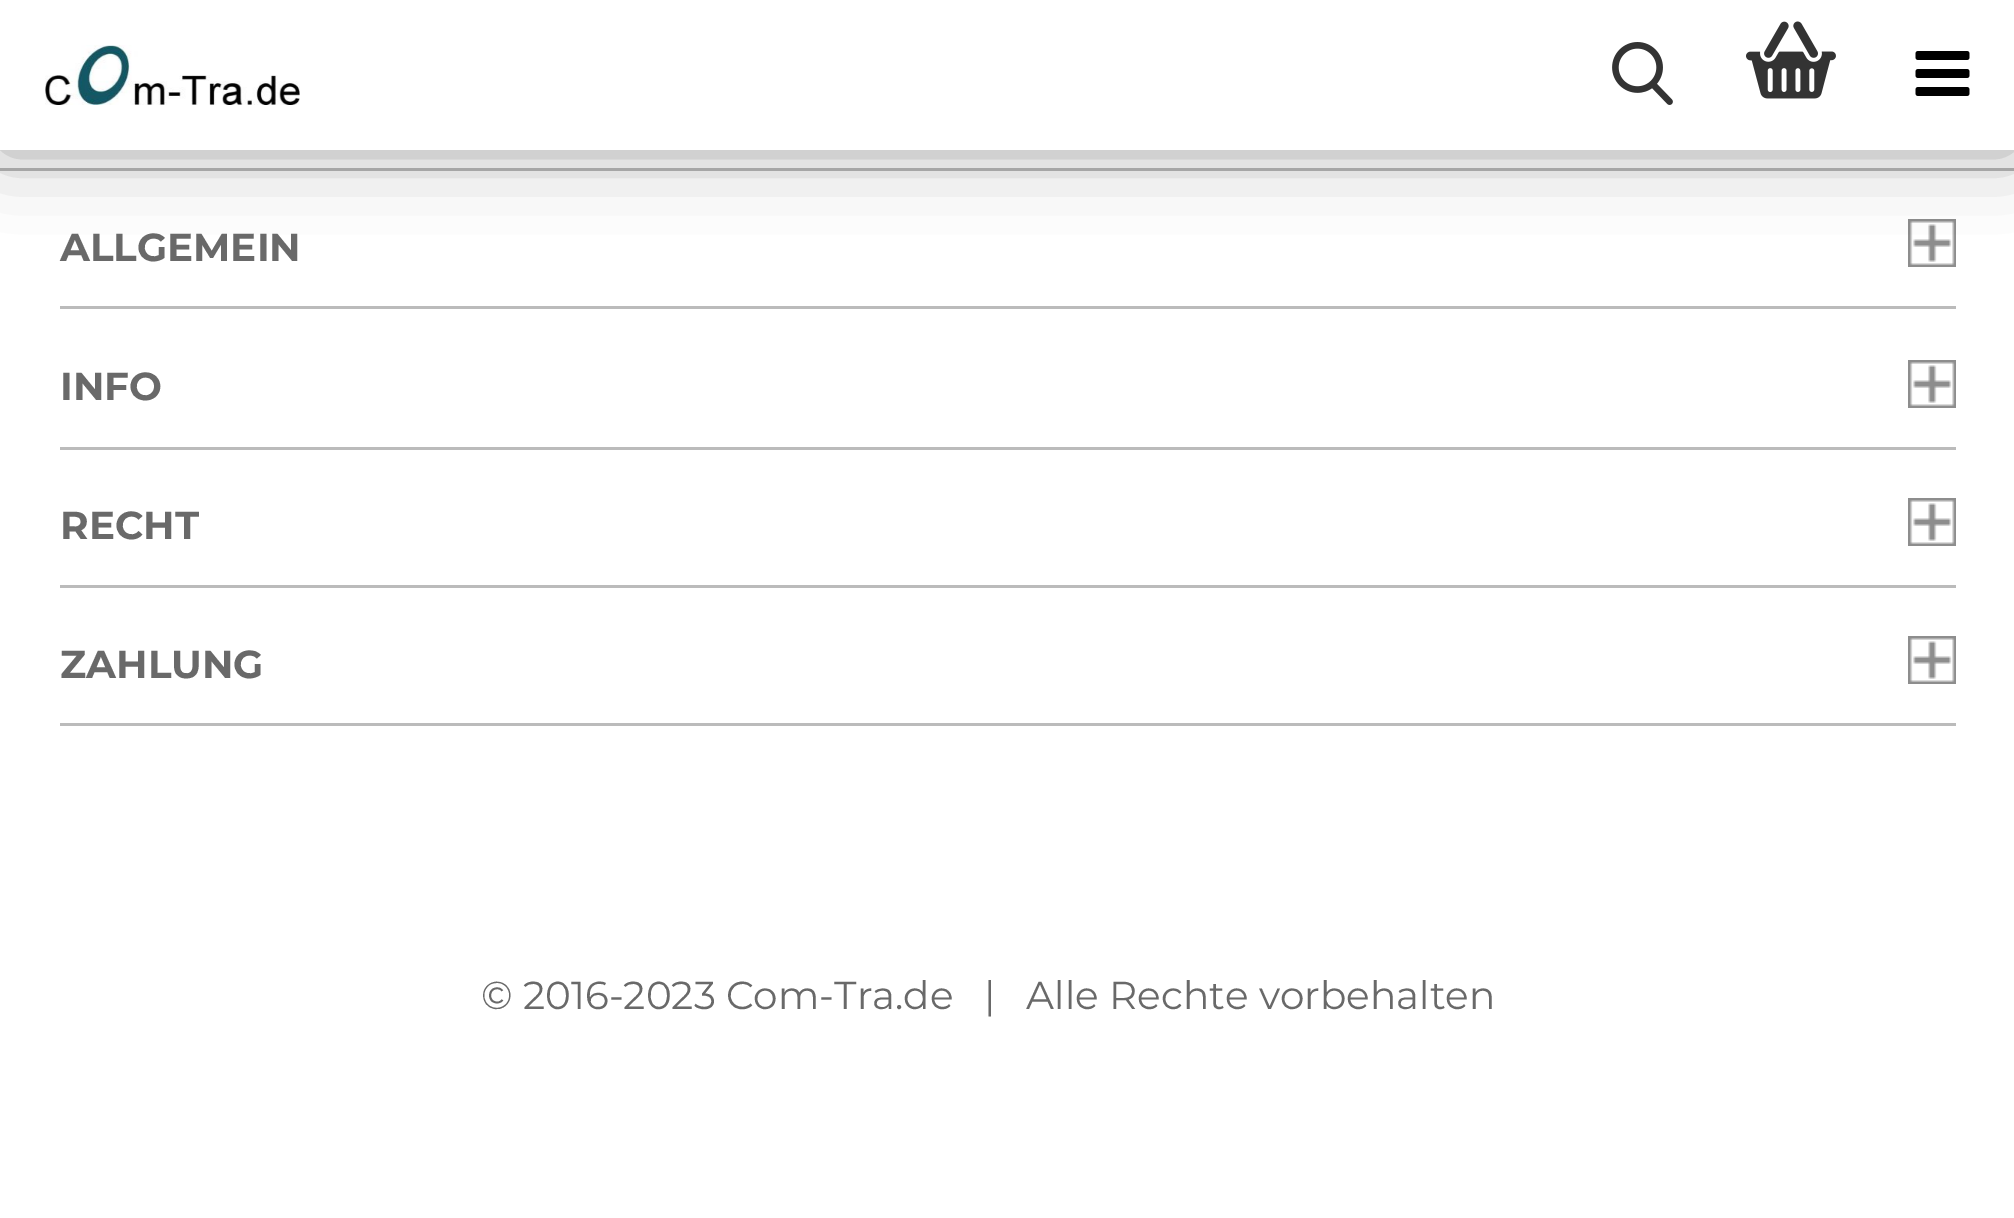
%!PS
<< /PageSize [2014 1218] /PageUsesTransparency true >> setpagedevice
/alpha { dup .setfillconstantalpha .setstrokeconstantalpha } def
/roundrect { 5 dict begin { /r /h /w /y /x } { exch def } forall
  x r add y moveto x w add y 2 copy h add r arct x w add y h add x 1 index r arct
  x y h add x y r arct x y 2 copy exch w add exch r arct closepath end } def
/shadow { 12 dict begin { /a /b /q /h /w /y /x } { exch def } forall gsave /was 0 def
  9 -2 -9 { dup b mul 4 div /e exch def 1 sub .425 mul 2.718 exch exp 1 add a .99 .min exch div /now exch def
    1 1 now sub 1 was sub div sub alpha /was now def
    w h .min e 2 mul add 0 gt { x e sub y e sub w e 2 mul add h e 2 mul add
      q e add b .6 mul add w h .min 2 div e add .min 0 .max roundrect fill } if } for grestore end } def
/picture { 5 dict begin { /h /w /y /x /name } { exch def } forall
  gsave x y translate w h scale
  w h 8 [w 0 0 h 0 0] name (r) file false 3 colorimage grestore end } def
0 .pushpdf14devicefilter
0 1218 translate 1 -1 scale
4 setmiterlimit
1 setgray
0 0 2014 1218 rectfill
0.733 setgray
0 168 2014 3 rectfill
(img5.rgb) 1908 219 48 48 picture
0 setgray
0 0 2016 150 0 37.5 0.35 shadow
1 setgray
0 0 2014 150 rectfill
(img1.rgb) 45 45 255 60 picture
(img2.rgb) 1612 42 61 63 picture
(img3.rgb) 1746 21 90 78 picture
(img4.rgb) 1915 51 55 45 picture
0.733 setgray
60 306 1896 3 rectfill
/Montserrat-Thin [39 0 0 -39 0 0] selectfont
0.412 setgray
60 261 moveto (ALLGEMEIN) show
0.733 setgray
60 447 1896 3 rectfill
0.412 setgray
60 400 moveto (INFO) show
(img5.rgb) 1908 360 48 48 picture
0.733 setgray
60 585 1896 3 rectfill
0.412 setgray
60 539 moveto (RECHT) show
(img5.rgb) 1908 498 48 48 picture
0.733 setgray
60 723 1896 3 rectfill
0.412 setgray
60 678 moveto (ZAHLUNG) show
(img5.rgb) 1908 636 48 48 picture
/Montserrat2-Thin [39 0 0 -39 0 0] selectfont
481 1009 moveto (© 2016-2023 Com-Tra.de   |   Alle Rechte vorbehalten) show
.poppdf14devicefilter showpage
